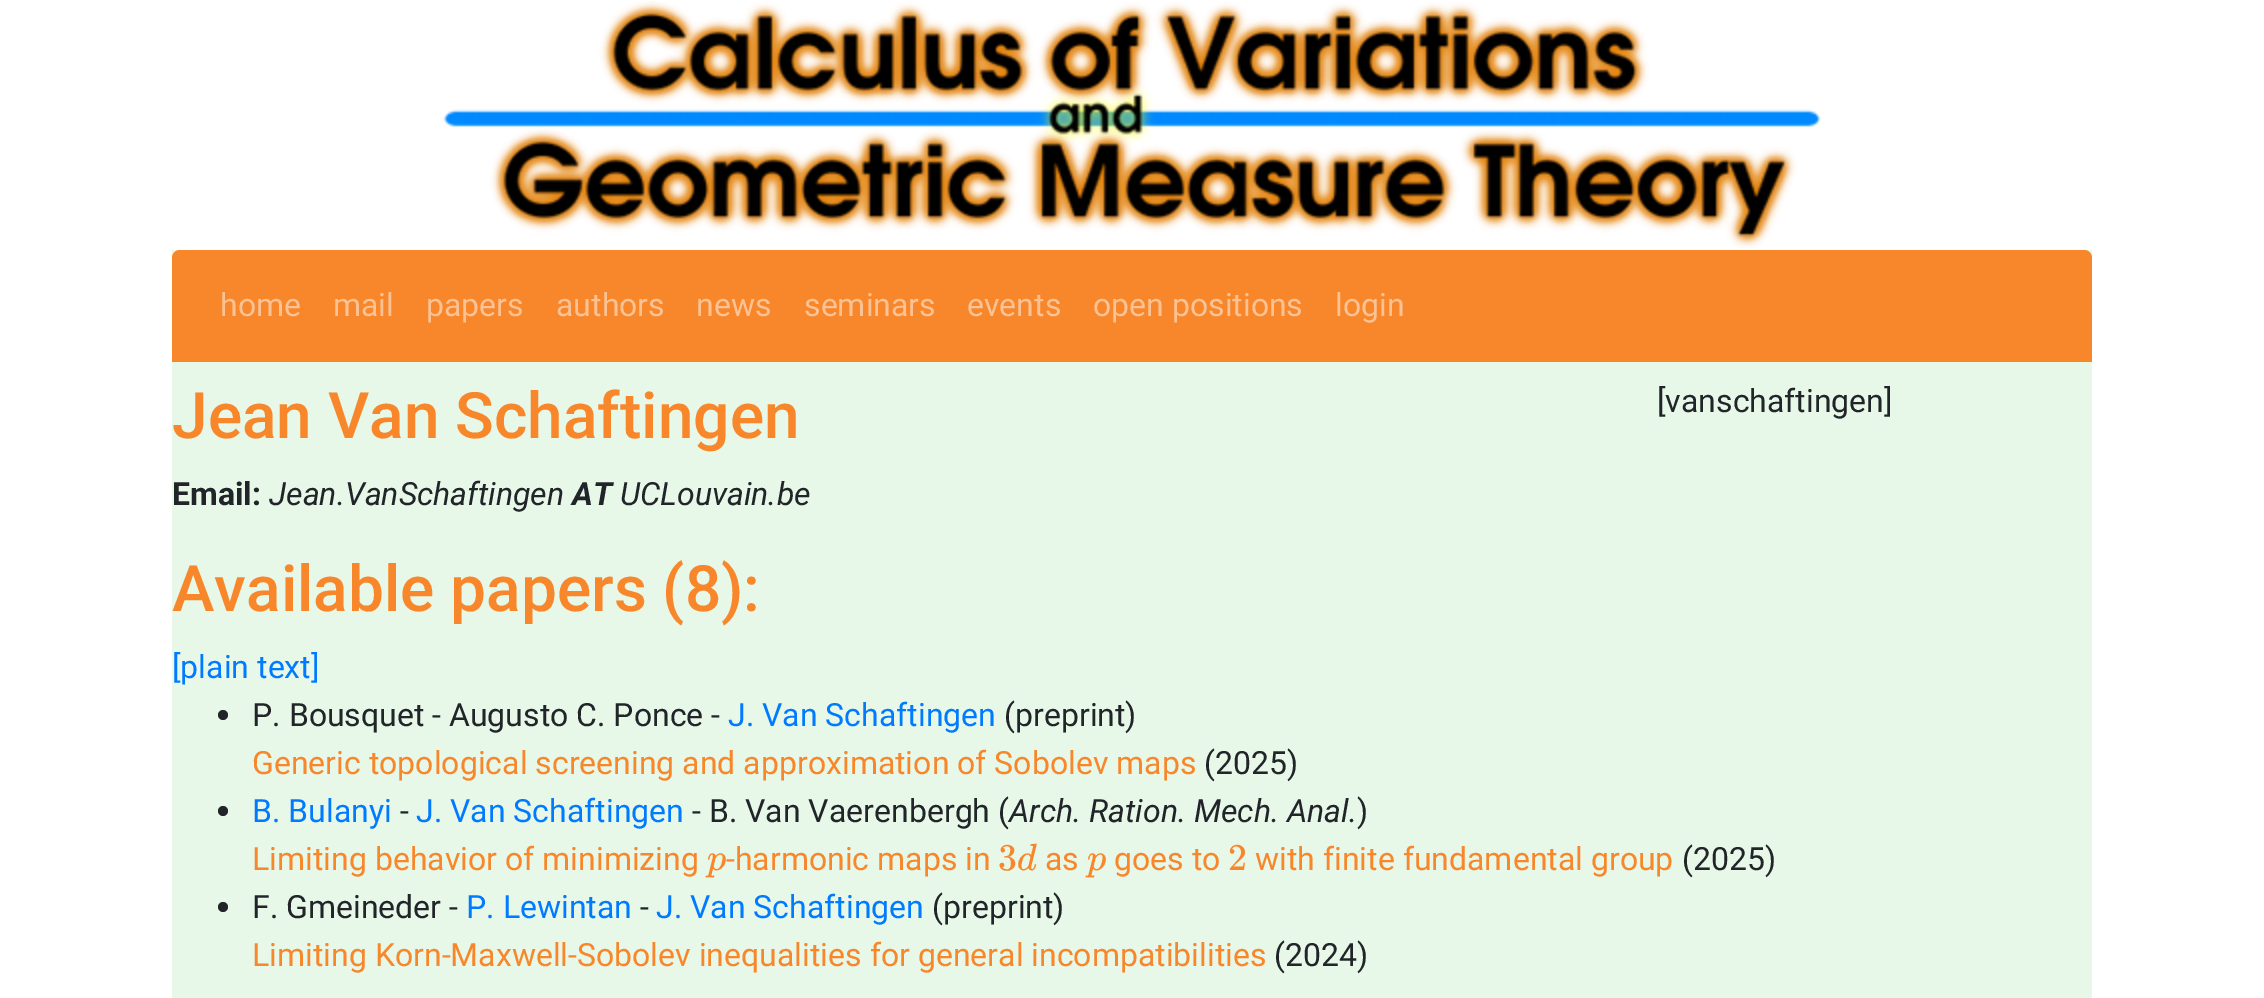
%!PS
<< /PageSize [2264 998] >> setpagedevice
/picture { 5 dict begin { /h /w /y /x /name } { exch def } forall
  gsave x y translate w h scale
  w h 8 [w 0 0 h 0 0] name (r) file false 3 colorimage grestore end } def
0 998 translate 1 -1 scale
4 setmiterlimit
1 setgray
0 0 2264 998 rectfill
0.91 0.973 0.91 setrgbcolor
172 250 1920 748 rectfill
(img1.rgb) 443 1 1378 247 picture
0.969 0.529 0.165 setrgbcolor
newpath 180 250 moveto 2084 250 lineto 2088.5 250 2092 253.5 2092 258 curveto 2092 362 lineto 172 362 lineto 172 258 lineto 172 253.5 175.5 250 180 250 curveto closepath fill
/Roboto-Regular [32 0 0 -32 0 0] selectfont
0.984 0.765 0.584 setrgbcolor
220 316 moveto (home) show
333 316 moveto (mail) show
426 316 moveto (papers) show
556 316 moveto (authors) show
696 316 moveto (news) show
804 316 moveto (seminars) show
967 316 moveto (events) show
1093 316 moveto (open positions) show
1335 316 moveto (login) show
/Roboto-Medium [64 0 0 -64 0 0] selectfont
0.969 0.529 0.165 setrgbcolor
172 438 moveto (Jean Van Schaftingen) show
/Roboto-Regular [32 0 0 -32 0 0] selectfont
0.129 0.145 0.161 setrgbcolor
1657 412 moveto ([vanschaftingen]) show
/Roboto-Bold [32 0 0 -32 0 0] selectfont
172 505 moveto (Email:) show
/Roboto-Italic [32 0 0 -32 0 0] selectfont
269 505 moveto (Jean.VanSchaftingen) show
/Roboto-BoldItalic [32 0 0 -32 0 0] selectfont
572 505 moveto (AT) show
/Roboto-Italic [32 0 0 -32 0 0] selectfont
620 505 moveto (UCLouvain.be) show
/Roboto-Medium [64 0 0 -64 0 0] selectfont
0.969 0.529 0.165 setrgbcolor
172 611 moveto (Available papers \(8\):) show
/Roboto-Regular [32 0 0 -32 0 0] selectfont
0 0.482 1 setrgbcolor
172 678 moveto ([plain text]) show
0.129 0.145 0.161 setrgbcolor
newpath 223 715 5 0 360 arc closepath fill
252 726 moveto (P. Bousquet - Augusto C. Ponce -) show
0 0.482 1 setrgbcolor
728 726 moveto (J. Van Schaftingen) show
0.129 0.145 0.161 setrgbcolor
1004 726 moveto (\(preprint\)) show
0.969 0.529 0.165 setrgbcolor
252 774 moveto (Generic topological screening and approximation of Sobolev maps) show
0.129 0.145 0.161 setrgbcolor
1204 774 moveto (\(2025\)) show
newpath 223 811 5 0 360 arc closepath fill
0 0.482 1 setrgbcolor
252 822 moveto (B. Bulanyi) show
0.129 0.145 0.161 setrgbcolor
400 822 moveto (-) show
0 0.482 1 setrgbcolor
416 822 moveto (J. Van Schaftingen) show
0.129 0.145 0.161 setrgbcolor
692 822 moveto (- B. Van Vaerenbergh \() show
/Roboto-Italic [32 0 0 -32 0 0] selectfont
1009 822 moveto (Arch. Ration. Mech. Anal.) show
/Roboto-Regular [32 0 0 -32 0 0] selectfont
1357 822 moveto (\)) show
0.969 0.529 0.165 setrgbcolor
252 870 moveto (Limiting behavior of minimizing) show
/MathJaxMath-Italic [38 0 0 -38 0 0] selectfont
707 870 moveto (p) show
/Roboto-Regular [32 0 0 -32 0 0] selectfont
726 870 moveto (-harmonic maps in) show
/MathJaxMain-Regular [38 0 0 -38 0 0] selectfont
998 870 moveto (3) show
/MathJaxMath-Italic [38 0 0 -38 0 0] selectfont
1017 870 moveto (d) show
/Roboto-Regular [32 0 0 -32 0 0] selectfont
1045 870 moveto (as) show
/MathJaxMath-Italic [38 0 0 -38 0 0] selectfont
1087 870 moveto (p) show
/Roboto-Regular [32 0 0 -32 0 0] selectfont
1114 870 moveto (goes to) show
/MathJaxMain-Regular [38 0 0 -38 0 0] selectfont
1228 870 moveto (2) show
/Roboto-Regular [32 0 0 -32 0 0] selectfont
1255 870 moveto (with finite fundamental group) show
0.129 0.145 0.161 setrgbcolor
1682 870 moveto (\(2025\)) show
newpath 223 907 5 0 360 arc closepath fill
252 918 moveto (F. Gmeineder -) show
0 0.482 1 setrgbcolor
466 918 moveto (P. Lewintan) show
0.129 0.145 0.161 setrgbcolor
640 918 moveto (-) show
0 0.482 1 setrgbcolor
656 918 moveto (J. Van Schaftingen) show
0.129 0.145 0.161 setrgbcolor
932 918 moveto (\(preprint\)) show
0.969 0.529 0.165 setrgbcolor
252 966 moveto (Limiting Korn-Maxwell-Sobolev inequalities for general incompatibilities) show
0.129 0.145 0.161 setrgbcolor
1274 966 moveto (\(2024\)) show
showpage
